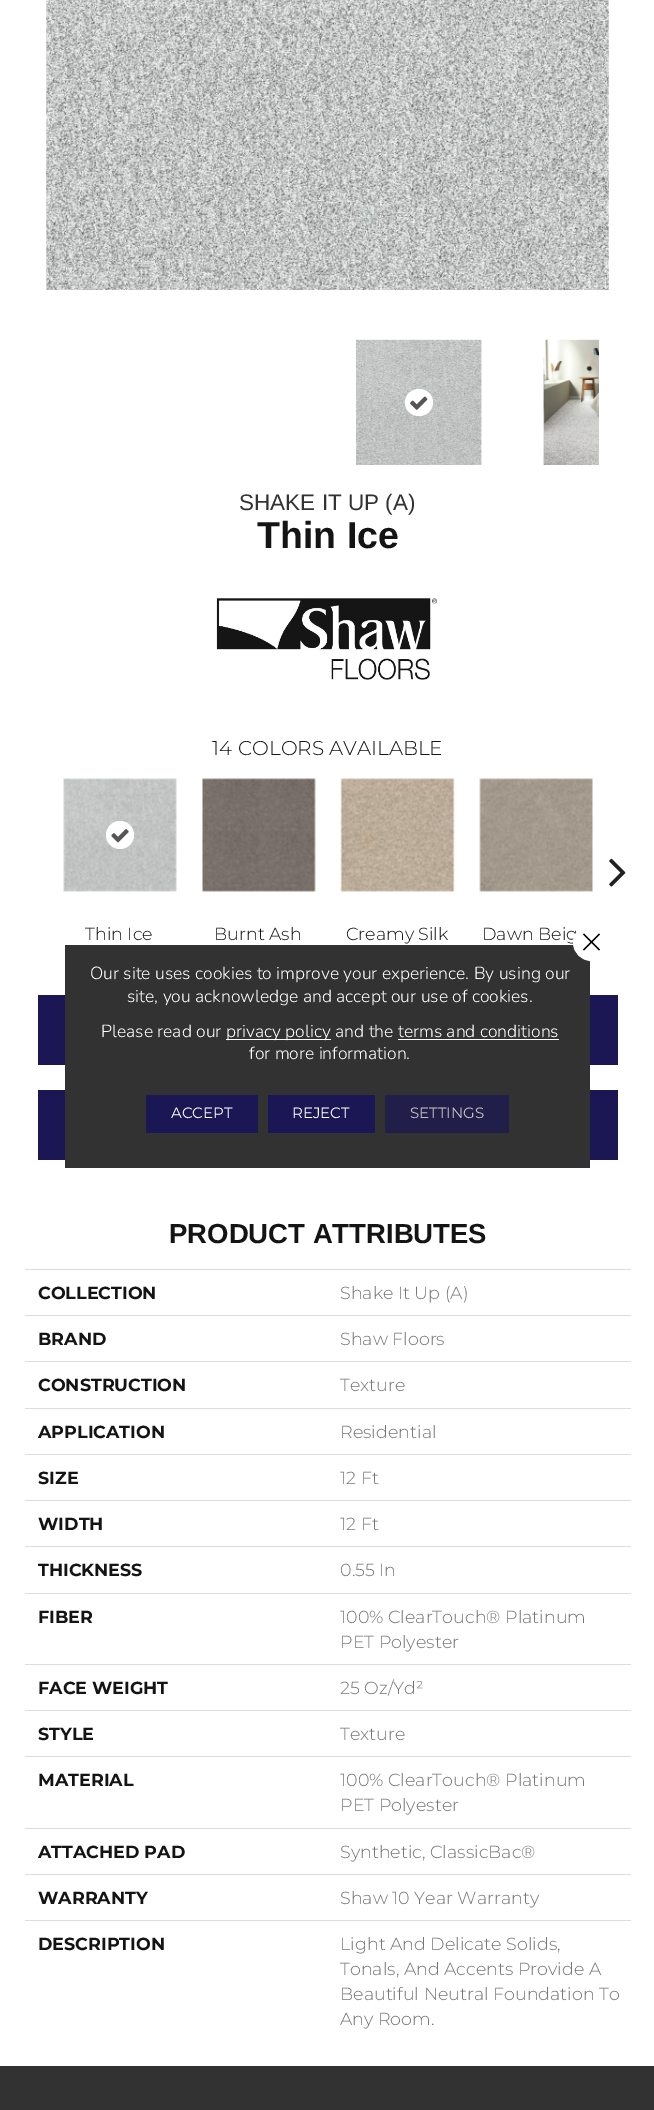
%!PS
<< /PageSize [654 2110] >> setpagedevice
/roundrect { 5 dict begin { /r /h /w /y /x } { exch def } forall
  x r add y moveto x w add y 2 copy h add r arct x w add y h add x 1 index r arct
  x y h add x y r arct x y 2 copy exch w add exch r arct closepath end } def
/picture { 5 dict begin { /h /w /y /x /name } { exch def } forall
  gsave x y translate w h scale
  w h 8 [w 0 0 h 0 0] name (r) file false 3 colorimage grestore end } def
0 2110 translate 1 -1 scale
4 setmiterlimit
1 setgray
0 0 654 2110 rectfill
(img1.rgb) 46 0 563 290 picture
(img2.rgb) 356 339 126 126 picture
(img3.rgb) 356 340 126 125 picture
405 389 28 27 13.5 roundrect fill
(img4.rgb) 410 396 18 14 picture
(img5.rgb) 543 339 56 126 picture
(img6.rgb) 543 340 56 125 picture
/LiberationSans-Regular [22.5 0 0 -22.5 0 0] selectfont
0.2 setgray
239 510 moveto (SHAKE IT UP \(A\)) show
/LiberationSans-Bold [37.5 0 0 -37.5 0 0] selectfont
0.078 setgray
257 548 moveto (Thin Ice) show
(img7.rgb) 216 598 221 82 picture
/Montserrat-Light [20 0 0 -20 0 0] selectfont
212 755 moveto (14) show
238 755 moveto (COLORS AVAILABLE) show
(img8.rgb) 609 858 17 29 picture
(img9.rgb) 63 778 114 114 picture
1 setgray
newpath 120 835 14 0 360 arc closepath fill
(img10.rgb) 111 829 18 14 picture
/Montserrat-Light [17.5 0 0 -17.5 0 0] selectfont
0.078 setgray
85 940 moveto (Thin Ice) show
(img11.rgb) 202 778 114 114 picture
214 940 moveto (Burnt Ash) show
(img12.rgb) 340 778 115 114 picture
346 940 moveto (Creamy Silk) show
(img13.rgb) 479 778 114 114 picture
482 940 moveto (Dawn Beig) show
0.106 0.086 0.329 setrgbcolor
38 995 27 70 rectfill
590 995 28 70 rectfill
38 1090 580 70 rectfill
/LiberationSans-Bold [27.5 0 0 -27.5 0 0] selectfont
0.078 setgray
169 1243 moveto (PRODUCT ATTRIBUTES) show
/Montserrat-Bold [17.5 0 0 -17.5 0 0] selectfont
38 1299 moveto (COLLECTION) show
0.867 setgray
25 1269 606 1 rectfill
/Montserrat-Light [17.5 0 0 -17.5 0 0] selectfont
0.459 setgray
340 1299 moveto (Shake It Up \(A\)) show
/Montserrat-Bold [17.5 0 0 -17.5 0 0] selectfont
0.078 setgray
38 1345 moveto (BRAND) show
0.867 setgray
25 1315 606 1 rectfill
/Montserrat-Light [17.5 0 0 -17.5 0 0] selectfont
0.459 setgray
340 1345 moveto (Shaw Floors) show
/Montserrat-Bold [17.5 0 0 -17.5 0 0] selectfont
0.078 setgray
38 1391 moveto (CONSTRUCTION) show
0.867 setgray
25 1361 606 1 rectfill
/Montserrat-Light [17.5 0 0 -17.5 0 0] selectfont
0.459 setgray
340 1391 moveto (Texture) show
/Montserrat-Bold [17.5 0 0 -17.5 0 0] selectfont
0.078 setgray
38 1438 moveto (APPLICATION) show
0.867 setgray
25 1408 606 1 rectfill
/Montserrat-Light [17.5 0 0 -17.5 0 0] selectfont
0.459 setgray
340 1438 moveto (Residential) show
/Montserrat-Bold [17.5 0 0 -17.5 0 0] selectfont
0.078 setgray
38 1484 moveto (SIZE) show
0.867 setgray
25 1454 606 1 rectfill
/Montserrat-Light [17.5 0 0 -17.5 0 0] selectfont
0.459 setgray
340 1484 moveto (12 Ft) show
/Montserrat-Bold [17.5 0 0 -17.5 0 0] selectfont
0.078 setgray
38 1530 moveto (WIDTH) show
0.867 setgray
25 1500 606 1 rectfill
/Montserrat-Light [17.5 0 0 -17.5 0 0] selectfont
0.459 setgray
340 1530 moveto (12 Ft) show
/Montserrat-Bold [17.5 0 0 -17.5 0 0] selectfont
0.078 setgray
38 1576 moveto (THICKNESS) show
0.867 setgray
25 1546 606 1 rectfill
/Montserrat-Light [17.5 0 0 -17.5 0 0] selectfont
0.459 setgray
340 1576 moveto (0.55 In) show
/Montserrat-Bold [17.5 0 0 -17.5 0 0] selectfont
0.078 setgray
38 1623 moveto (FIBER) show
0.867 setgray
25 1593 606 1 rectfill
/Montserrat-Light [17.5 0 0 -17.5 0 0] selectfont
0.459 setgray
340 1623 moveto (100% ClearTouch® Platinum) show
340 1648 moveto (PET Polyester) show
/Montserrat-Bold [17.5 0 0 -17.5 0 0] selectfont
0.078 setgray
38 1694 moveto (FACE WEIGHT) show
0.867 setgray
25 1664 606 1 rectfill
/Montserrat-Light [17.5 0 0 -17.5 0 0] selectfont
0.459 setgray
340 1694 moveto (25 Oz/Yd²) show
/Montserrat-Bold [17.5 0 0 -17.5 0 0] selectfont
0.078 setgray
38 1740 moveto (STYLE) show
0.867 setgray
25 1710 606 1 rectfill
/Montserrat-Light [17.5 0 0 -17.5 0 0] selectfont
0.459 setgray
340 1740 moveto (Texture) show
/Montserrat-Bold [17.5 0 0 -17.5 0 0] selectfont
0.078 setgray
38 1786 moveto (MATERIAL) show
0.867 setgray
25 1756 606 1 rectfill
/Montserrat-Light [17.5 0 0 -17.5 0 0] selectfont
0.459 setgray
340 1786 moveto (100% ClearTouch® Platinum) show
340 1811 moveto (PET Polyester) show
/Montserrat-Bold [17.5 0 0 -17.5 0 0] selectfont
0.078 setgray
38 1858 moveto (ATTACHED PAD) show
0.867 setgray
25 1828 606 1 rectfill
/Montserrat-Light [17.5 0 0 -17.5 0 0] selectfont
0.459 setgray
340 1858 moveto (Synthetic, ClassicBac®) show
/Montserrat-Bold [17.5 0 0 -17.5 0 0] selectfont
0.078 setgray
38 1904 moveto (WARRANTY) show
0.867 setgray
25 1874 606 1 rectfill
/Montserrat-Light [17.5 0 0 -17.5 0 0] selectfont
0.459 setgray
340 1904 moveto (Shaw 10 Year Warranty) show
/Montserrat-Bold [17.5 0 0 -17.5 0 0] selectfont
0.078 setgray
38 1950 moveto (DESCRIPTION) show
0.867 setgray
25 1920 606 1 rectfill
/Montserrat-Light [17.5 0 0 -17.5 0 0] selectfont
0.459 setgray
340 1950 moveto (Light And Delicate Solids,) show
340 1975 moveto (Tonals, And Accents Provide A) show
340 2000 moveto (Beautiful Neutral Foundation To) show
340 2025 moveto (Any Room.) show
0.196 setgray
0 2066 654 44 rectfill
65 945 525 223 rectfill
/Nunito-Light [17.5 0 0 -17.5 0 0] selectfont
1 setgray
90 979 moveto (Our site uses cookies to improve your experience. By using our) show
127 1002 moveto (site, you acknowledge and accept our use of cookies.) show
101 1037 moveto (Please read our) show
226 1039 105 1 rectfill
226 1037 moveto (privacy policy and the terms and conditions) show
398 1039 161 1 rectfill
249 1059 moveto (for more information.) show
newpath 591.5 942.5 18 0 360 arc closepath gsave fill grestore
stroke
0 setgray
newpath 599 933.5 moveto 600 934.5 lineto 584 950.5 lineto 583 949.5 lineto closepath fill
newpath 583 934.5 moveto 584 933.5 lineto 600 949.5 lineto 599 950.5 lineto closepath fill
0.106 0.086 0.329 setrgbcolor
146 1095 112 38 rectfill
/Montserrat-Regular [15 0 0 -15 0 0] selectfont
1 setgray
171 1118 moveto (ACCEPT) show
0.106 0.086 0.329 setrgbcolor
268 1095 107 38 rectfill
1 setgray
292 1118 moveto (REJECT) show
0.133 0.118 0.29 setrgbcolor
385 1095 124 38 rectfill
0.761 setgray
410 1118 moveto (SETTINGS) show
showpage
